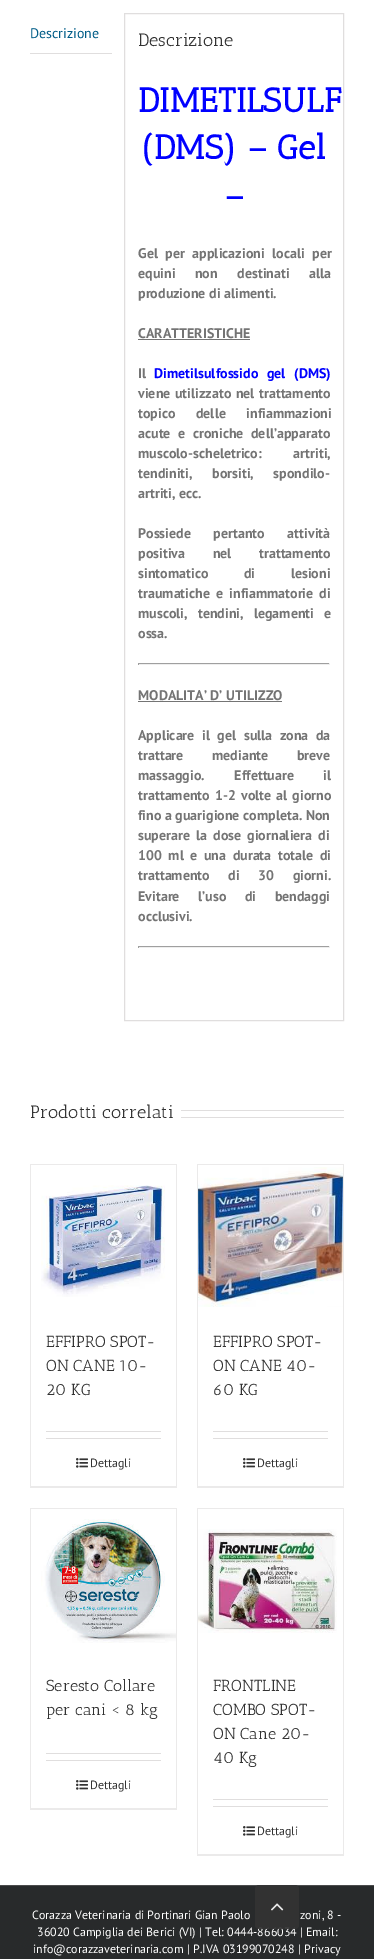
%!PS
<< /PageSize [374 1959] /PageUsesTransparency true >> setpagedevice
/alpha { dup .setfillconstantalpha .setstrokeconstantalpha } def
/roundrect { 5 dict begin { /r /h /w /y /x } { exch def } forall
  x r add y moveto x w add y 2 copy h add r arct x w add y h add x 1 index r arct
  x y h add x y r arct x y 2 copy exch w add exch r arct closepath end } def
/picture { 5 dict begin { /h /w /y /x /name } { exch def } forall
  gsave x y translate w h scale
  w h 8 [w 0 0 h 0 0] name (r) file false 3 colorimage grestore end } def
0 .pushpdf14devicefilter
0 1959 translate 1 -1 scale
4 setmiterlimit
1 setgray
0 0 374 1959 rectfill
0.878 0.871 0.871 setrgbcolor
30 53 82 1 rectfill
/PTSans-Regular [14 0 0 -14 0 0] selectfont
0 0.361 0.529 setrgbcolor
30 38 moveto (Descrizione) show
0.878 0.871 0.871 setrgbcolor
124.5 13.5 219 1007 rectstroke
/AnticSlab-Regular [18 0 0 -18 0 0] selectfont
0.2 setgray
138 46 moveto (Descrizione) show
/AnticSlab-Bold [34 0 0 -34 0 0] selectfont
0 0 1 setrgbcolor
138 112 moveto (DIMETILSULF) show
142 159 moveto (\(DMS\) – Gel) show
224 207 moveto (–) show
/PTSans-Bold [14 0 0 -14 0 0] selectfont
0.455 setgray
138 258 moveto 4 0 32 (Gel per applicazioni locali per) widthshow
138 278 moveto 16 0 32 (equini non destinati alla) widthshow
138 298 moveto (produzione di alimenti.) show
138 338 moveto (CARATTERISTICHE) show
138 339 112 1 rectfill
138 378 moveto (Il) show
0 0 1 setrgbcolor
154 378 moveto 5 0 32 (Dimetilsulfossido gel \(DMS\)) widthshow
0.455 setgray
138 398 moveto 1 0 32 (viene utilizzato nel trattamento) widthshow
138 418 moveto 17 0 32 (topico delle infiammazioni) widthshow
138 438 moveto 4 0 32 (acute e croniche dell’apparato) widthshow
138 458 moveto 28 0 32 (muscolo-scheletrico: artriti,) widthshow
138 478 moveto 16 0 32 (tendiniti, borsiti, spondilo-) widthshow
138 498 moveto (artriti, ecc.) show
138 538 moveto 19 0 32 (Possiede pertanto attività) widthshow
138 558 moveto 24 0 32 (positiva nel trattamento) widthshow
138 578 moveto 32 0 32 (sintomatico di lesioni) widthshow
138 598 moveto 2.5 0 32 (traumatiche e infiammatorie di) widthshow
138 618 moveto 6.5 0 32 (muscoli, tendini, legamenti e) widthshow
138 638 moveto (ossa.) show
0.624 setgray
138 663 192 1 rectfill
0.933 setgray
329 663 1 2 rectfill
138 664 192 1 rectfill
0.624 setgray
138 663 1 2 rectfill
0.455 setgray
138 700 moveto (MODALITA’ D’ UTILIZZO) show
138 701 144 1 rectfill
138 740 moveto 4 0 32 (Applicare il gel sulla zona da) widthshow
138 760 moveto 25 0 32 (trattare mediante breve) widthshow
138 780 moveto 26 0 32 (massaggio. Effettuare il) widthshow
138 800 moveto 1.5 0 32 (trattamento 1-2 volte al giorno) widthshow
138 820 moveto (fino a guarigione completa. Non) show
138 840 moveto 2.5 0 32 (superare la dose giornaliera di) widthshow
138 860 moveto 3 0 32 (100 ml e una durata totale di) widthshow
138 880 moveto 15 0 32 (trattamento di 30 giorni.) widthshow
138 901 moveto 15 0 32 (Evitare l’uso di bendaggi) widthshow
138 921 moveto (occlusivi.) show
0.624 setgray
138 946 192 1 rectfill
0.933 setgray
329 946 1 2 rectfill
138 947 192 1 rectfill
0.624 setgray
138 946 1 2 rectfill
/AnticSlab-Regular [18 0 0 -18 0 0] selectfont
0.2 setgray
30 1118 moveto (Prodotti correlati) show
0.878 0.871 0.871 setrgbcolor
181 1110 163 1 rectfill
181 1117 163 1 rectfill
0.922 0.918 0.918 setrgbcolor
30 1164 147 1 rectfill
176 1164 1 324 rectfill
30 1486 147 2 rectfill
30 1164 1 324 rectfill
(img1.rgb) 41 1185 124 112 picture
/AnticSlab-Regular [16 0 0 -16 0 0] selectfont
0.2 setgray
46 1347 moveto (EFFIPRO SPOT-) show
46 1371 moveto (ON CANE 10-) show
46 1395 moveto (20 KG) show
0.878 0.871 0.871 setrgbcolor
46 1431 115 1 rectfill
46 1438 115 1 rectfill
(img2.rgb) 76 1458 12 10 picture
/PTSans-Regular [12 0 0 -12 0 0] selectfont
0.2 setgray
90 1467 moveto (Dettagli) show
0.922 0.918 0.918 setrgbcolor
197 1164 147 1 rectfill
343 1164 1 324 rectfill
197 1486 147 2 rectfill
197 1164 1 324 rectfill
(img3.rgb) 198 1167 145 140 picture
/AnticSlab-Regular [16 0 0 -16 0 0] selectfont
0.2 setgray
213 1347 moveto (EFFIPRO SPOT-) show
213 1371 moveto (ON CANE 40-) show
213 1395 moveto (60 KG) show
0.878 0.871 0.871 setrgbcolor
213 1431 115 1 rectfill
213 1438 115 1 rectfill
(img2.rgb) 243 1458 12 10 picture
/PTSans-Regular [12 0 0 -12 0 0] selectfont
0.2 setgray
257 1467 moveto (Dettagli) show
0.922 0.918 0.918 setrgbcolor
30 1508 147 1 rectfill
176 1508 1 302 rectfill
30 1808 147 2 rectfill
30 1508 1 302 rectfill
(img4.rgb) 41 1519 135 124 picture
/AnticSlab-Regular [16 0 0 -16 0 0] selectfont
0.2 setgray
46 1691 moveto (Seresto Collare) show
46 1715 moveto (per cani < 8 kg) show
0.878 0.871 0.871 setrgbcolor
46 1753 115 1 rectfill
46 1760 115 1 rectfill
(img2.rgb) 76 1780 12 10 picture
/PTSans-Regular [12 0 0 -12 0 0] selectfont
0.2 setgray
90 1789 moveto (Dettagli) show
0.922 0.918 0.918 setrgbcolor
197 1508 147 1 rectfill
343 1508 1 348 rectfill
197 1854 147 2 rectfill
197 1508 1 348 rectfill
(img5.rgb) 198 1529 139 104 picture
/AnticSlab-Regular [16 0 0 -16 0 0] selectfont
0.2 setgray
213 1691 moveto (FRONTLINE) show
213 1715 moveto (COMBO SPOT-) show
213 1739 moveto (ON Cane 20-) show
213 1763 moveto (40 Kg) show
0.878 0.871 0.871 setrgbcolor
213 1799 115 1 rectfill
213 1806 115 1 rectfill
(img2.rgb) 243 1826 12 10 picture
/PTSans-Regular [12 0 0 -12 0 0] selectfont
0.2 setgray
257 1835 moveto (Dettagli) show
0.157 0.165 0.169 setrgbcolor
0 1886 374 73 rectfill
0.294 0.298 0.302 setrgbcolor
0 1885 374 1 rectfill
1 setgray
32 1919 moveto (Corazza Veterinaria di Portinari Gian Paolo) show
300 1919 moveto (zoni, 8 -) show
37 1936 moveto (36020 Campiglia dei Berici \(VI\) | Tel: 0444-866034 | Email:) show
33 1953 moveto (info@corazzaveterinaria.com | P.IVA 03199070248 | Privacy) show
0.9 alpha
0.2 setgray
255 1885 44 44 4 roundrect fill
1 alpha
(img6.rgb) 271 1903 13 8 picture
.poppdf14devicefilter showpage
